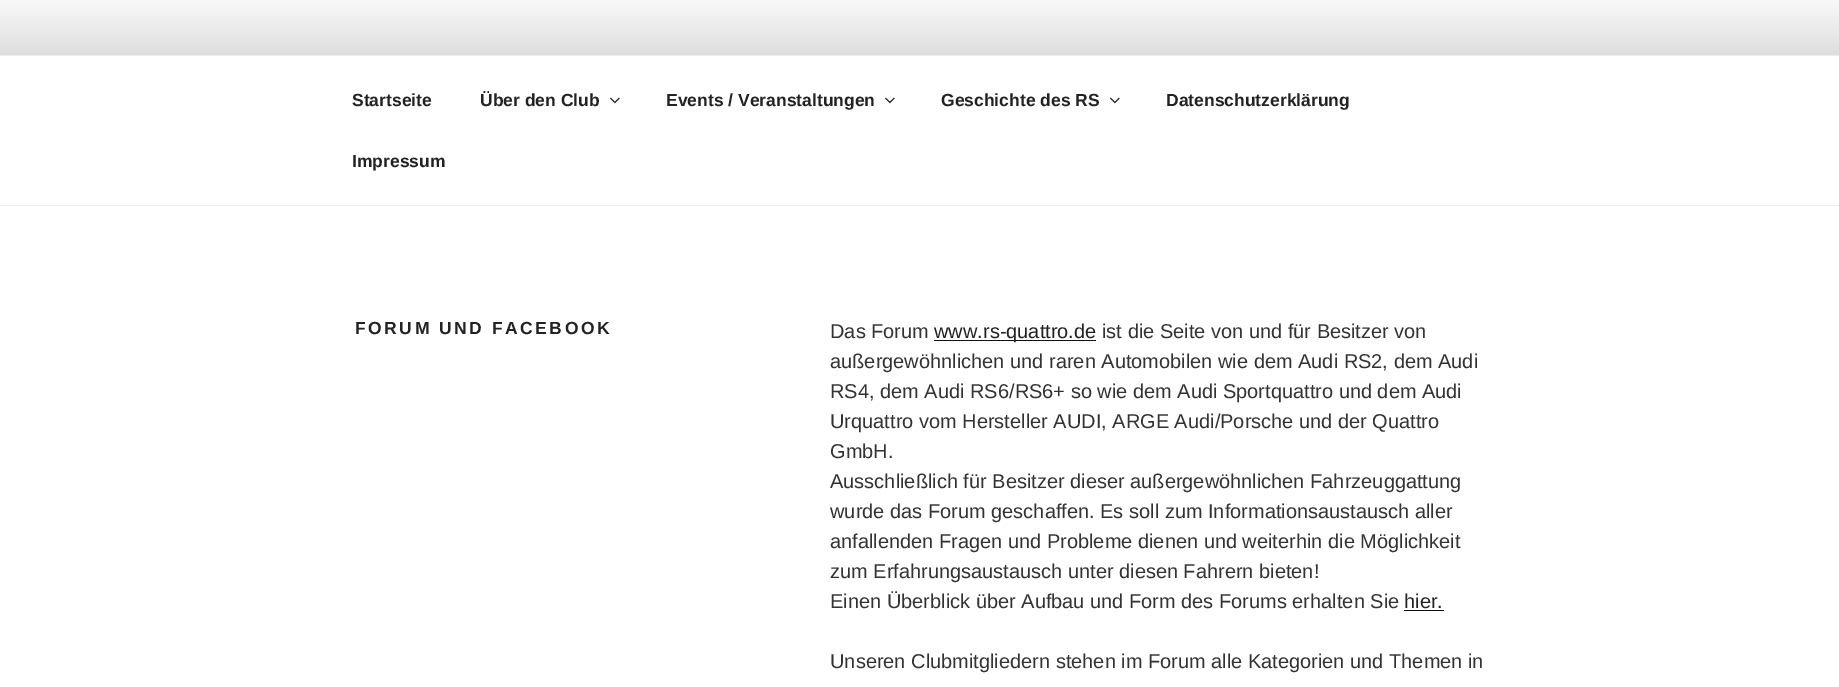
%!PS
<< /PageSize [1839 687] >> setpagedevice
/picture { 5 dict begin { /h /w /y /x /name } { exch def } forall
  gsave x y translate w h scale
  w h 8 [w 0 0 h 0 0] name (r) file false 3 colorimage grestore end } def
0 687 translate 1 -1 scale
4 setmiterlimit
1 setgray
0 0 1839 687 rectfill
gsave newpath 0 0 moveto 1839 0 lineto 1839 55 lineto 0 55 lineto closepath clip newpath
<< /ShadingType 2 /ColorSpace /DeviceRGB /Coords [920 0 920 206] /Extend [true true] /Function << /FunctionType 3 /Domain [0 1] /Functions [<< /FunctionType 2 /Domain [0 1] /C0 [0.976 0.976 0.976] /C1 [0.682 0.682 0.682] /N 1 >> << /FunctionType 2 /Domain [0 1] /C0 [0.682 0.682 0.682] /C1 [0.682 0.682 0.682] /N 1 >>] /Bounds [0.75] /Encode [0 1 0 1] >> >> shfill grestore
0.933 setgray
0 55 1839 1 rectfill
0 205 1839 1 rectfill
/LiberationSans-Bold [17.5 0 0 -17.5 0 0] selectfont
0.133 setgray
352 106 moveto (Startseite) show
480 106 moveto (Über den Club) show
(img1.rgb) 610 97 10 7 picture
666 106 moveto (Events / Veranstaltungen) show
(img1.rgb) 885 97 10 7 picture
941 106 moveto (Geschichte des RS) show
(img1.rgb) 1110 97 10 7 picture
1166 106 moveto (Datenschutzerklärung) show
352 167 moveto (Impressum) show
355 334 moveto 2.5 0 (FORUM UND FACEBOOK) ashow
/LiberationSans-Regular [20 0 0 -20 0 0] selectfont
0.2 setgray
830 338 moveto (Das Forum) show
0.059 setgray
934 340 162 1 rectfill
0.133 setgray
934 338 moveto (www.rs-quattro.de) show
0.2 setgray
1102 338 moveto (ist die Seite von und für Besitzer von) show
830 368 moveto (außergewöhnlichen und raren Automobilen wie dem Audi RS2, dem Audi) show
830 398 moveto (RS4, dem Audi RS6/RS6+ so wie dem Audi Sportquattro und dem Audi) show
830 428 moveto (Urquattro vom Hersteller AUDI, ARGE Audi/Porsche und der Quattro) show
830 458 moveto (GmbH.) show
830 488 moveto (Ausschließlich für Besitzer dieser außergewöhnlichen Fahrzeuggattung) show
830 518 moveto (wurde das Forum geschaffen. Es soll zum Informationsaustausch aller) show
830 548 moveto (anfallenden Fragen und Probleme dienen und weiterhin die Möglichkeit) show
830 578 moveto (zum Erfahrungsaustausch unter diesen Fahrern bieten!) show
830 608 moveto (Einen Überblick über Aufbau und Form des Forums erhalten Sie) show
0.133 setgray
1404 608 moveto (hier.) show
0.059 setgray
1404 610 40 1 rectfill
0.2 setgray
830 668 moveto (Unseren Clubmitgliedern stehen im Forum alle Kategorien und Themen in) show
showpage
